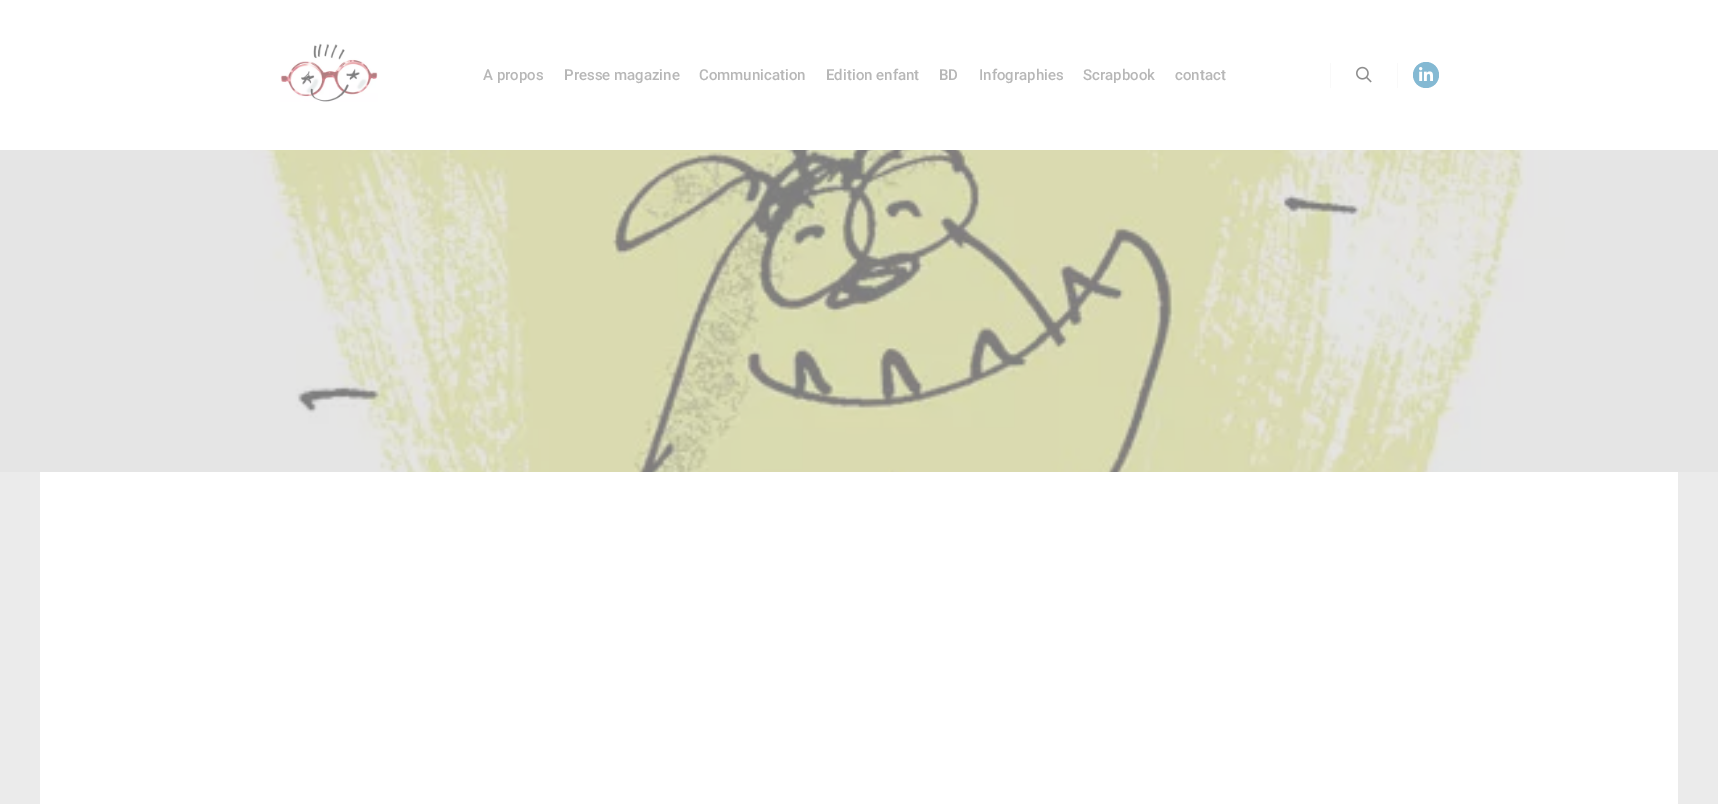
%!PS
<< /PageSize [1718 804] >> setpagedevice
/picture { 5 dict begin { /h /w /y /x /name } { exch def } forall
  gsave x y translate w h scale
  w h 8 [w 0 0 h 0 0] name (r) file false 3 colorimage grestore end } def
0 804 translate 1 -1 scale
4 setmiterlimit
0.922 setgray
0 0 1718 804 rectfill
1 setgray
0 0 1718 150 rectfill
(img1.rgb) 280 43 98 59 picture
/Roboto-Medium [15 0 0 -15 0 0] selectfont
0.718 setgray
483 80 moveto (A propos) show
564 80 moveto (Presse magazine) show
699 80 moveto (Communication) show
826 80 moveto (Edition enfant) show
939 80 moveto (BD) show
979 80 moveto (Infographies) show
1083 80 moveto (Scrapbook) show
1175 80 moveto (contact) show
0.976 setgray
1330 63 1 25 rectfill
(img2.rgb) 1356 66 16 17 picture
1397 63 1 25 rectfill
0.518 0.725 0.827 setrgbcolor
newpath 1426 75 13 0 360 arc closepath fill
(img3.rgb) 1419 67 14 14 picture
(img4.rgb) 0 150 1718 322 picture
1 setgray
40 472 1638 332 rectfill
showpage
